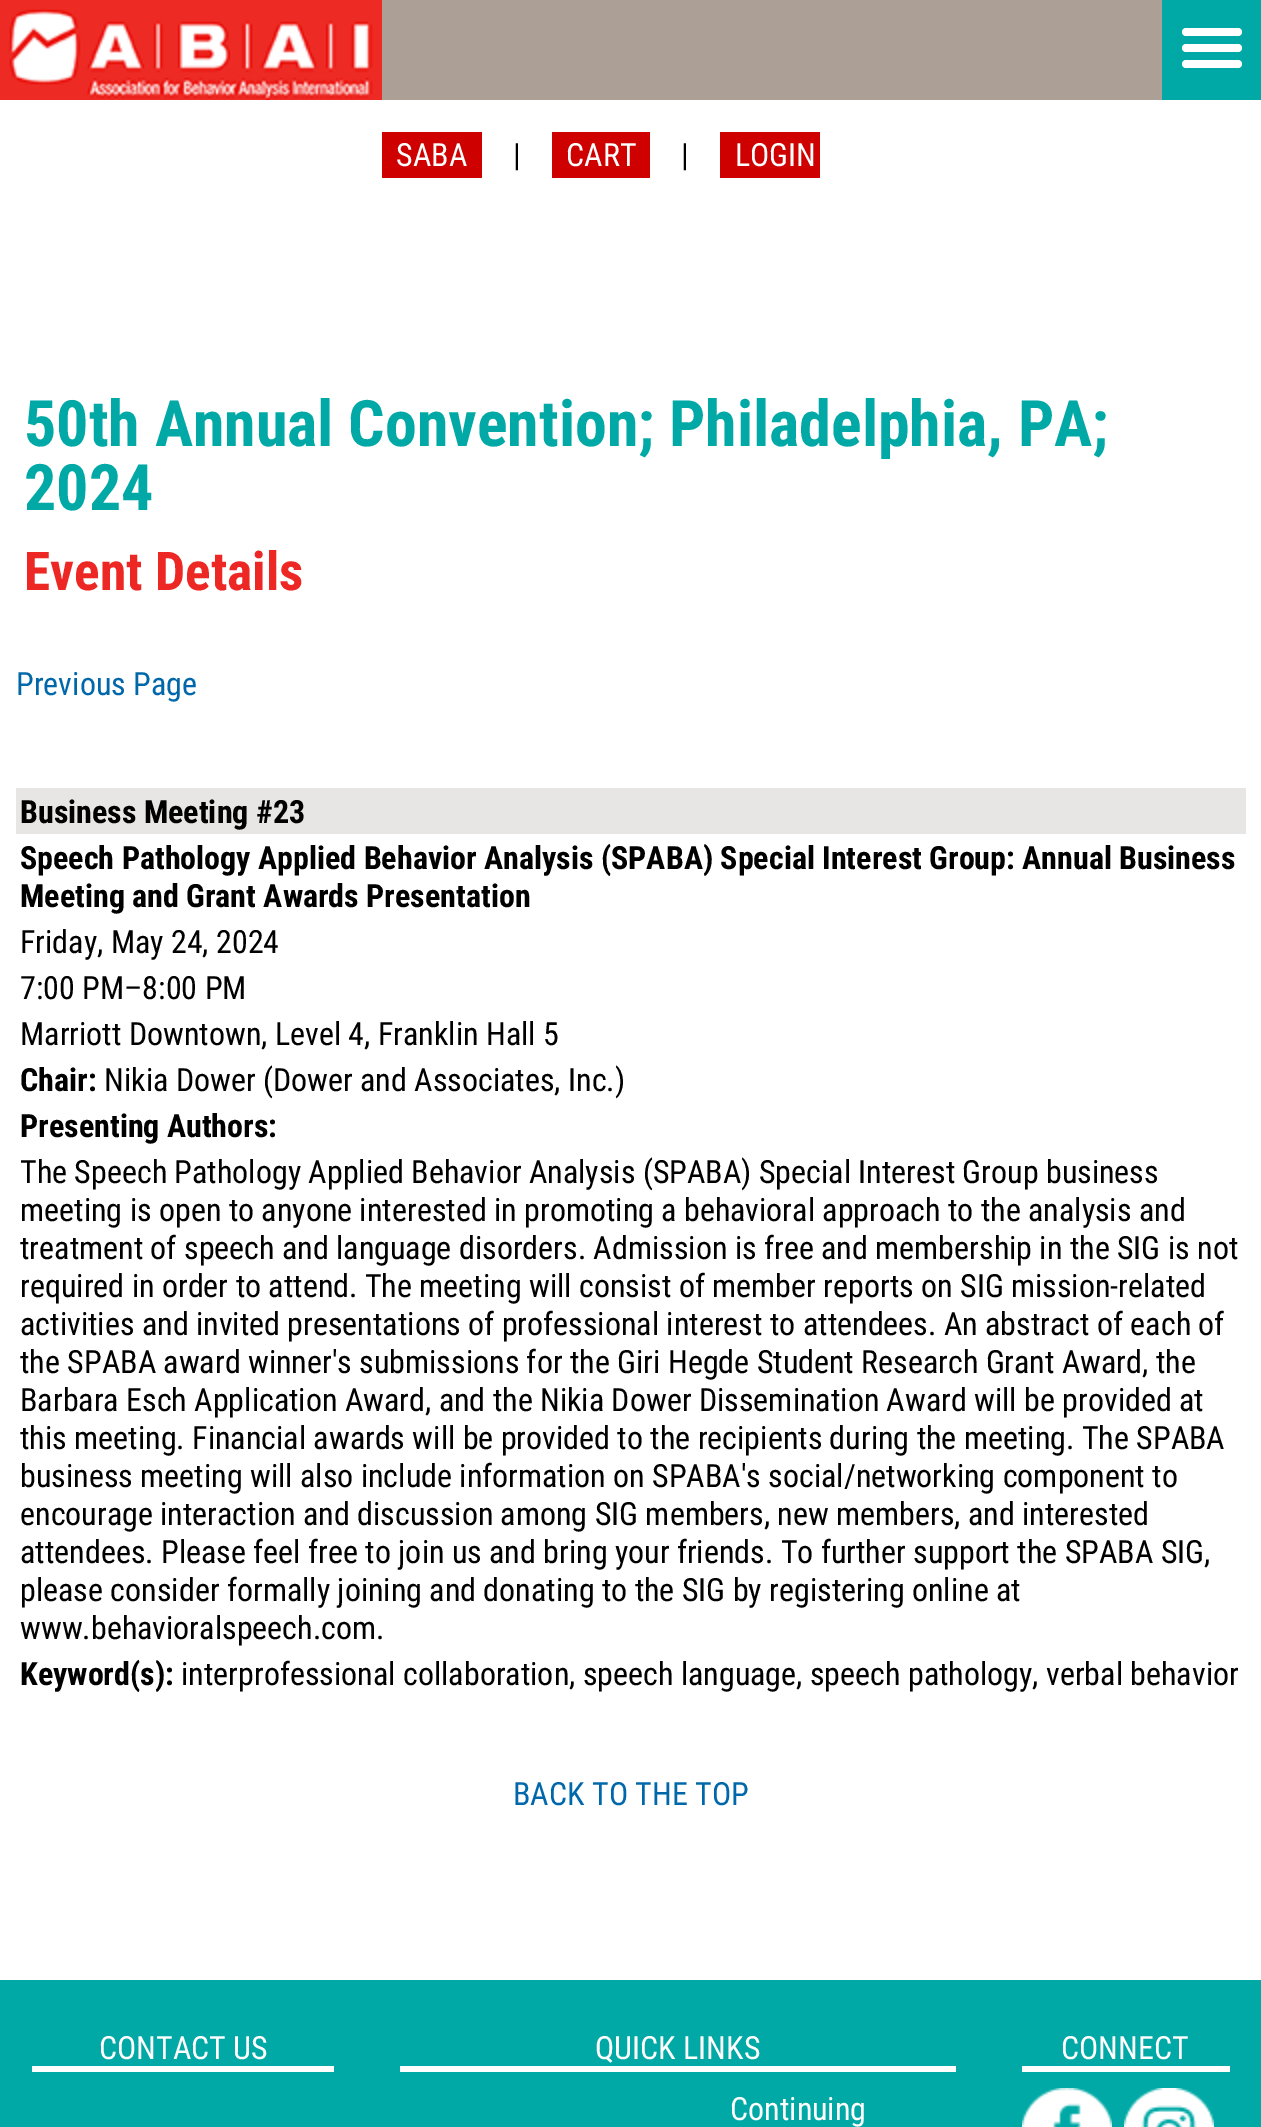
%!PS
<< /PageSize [1261 2127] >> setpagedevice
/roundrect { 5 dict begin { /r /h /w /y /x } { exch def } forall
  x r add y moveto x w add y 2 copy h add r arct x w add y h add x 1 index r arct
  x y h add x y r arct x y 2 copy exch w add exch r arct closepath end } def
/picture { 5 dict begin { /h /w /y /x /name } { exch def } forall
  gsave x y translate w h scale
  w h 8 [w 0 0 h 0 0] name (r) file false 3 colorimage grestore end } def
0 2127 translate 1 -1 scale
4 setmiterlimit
1 setgray
0 0 1261 2127 rectfill
0 0.663 0.647 setrgbcolor
1162 0 99 100 rectfill
1 setgray
1182 44 60 8 4 roundrect fill
1182 28 60 8 4 roundrect fill
1182 60 60 8 4 roundrect fill
0.675 0.624 0.588 setrgbcolor
382 0 780 100 rectfill
(img1.rgb) 0 0 382 100 picture
0.808 0.004 0 setrgbcolor
382 132 100 46 rectfill
/RobotoCondensed-Regular [32 0 0 -32 0 0] selectfont
1 setgray
396 166 moveto (SABA) show
0 setgray
513 166 moveto (|) show
0.808 0.004 0 setrgbcolor
552 132 98 46 rectfill
1 setgray
566 166 moveto (CART) show
0 setgray
681 166 moveto (|) show
0.808 0.004 0 setrgbcolor
720 132 100 46 rectfill
1 setgray
735 166 moveto (LOGIN) show
/RobotoCondensed-Bold [64 0 0 -64 0 0] selectfont
0 0.663 0.651 setrgbcolor
24 446 moveto (50th Annual Convention; Philadelphia, PA;) show
24 510 moveto (2024) show
/RobotoCondensed-Bold [53.5 0 0 -53.5 0 0] selectfont
0.929 0.153 0.141 setrgbcolor
24 590 moveto (Event Details) show
/RobotoCondensed-Regular [32 0 0 -32 0 0] selectfont
0 0.408 0.667 setrgbcolor
16 695 moveto (Previous Page) show
0.906 0.902 0.894 setrgbcolor
16 788 1230 46 rectfill
/RobotoCondensed-Bold [32 0 0 -32 0 0] selectfont
0 setgray
20 823 moveto (Business Meeting #23) show
20 869 moveto (Speech Pathology Applied Behavior Analysis \(SPABA\) Special Interest Group: Annual Business) show
20 907 moveto (Meeting and Grant Awards Presentation) show
/RobotoCondensed-Regular [32 0 0 -32 0 0] selectfont
20 953 moveto (Friday, May 24, 2024) show
20 999 moveto (7:00 PM–8:00 PM) show
20 1045 moveto (Marriott Downtown, Level 4, Franklin Hall 5) show
/RobotoCondensed-Bold [32 0 0 -32 0 0] selectfont
20 1091 moveto (Chair:) show
/RobotoCondensed-Regular [32 0 0 -32 0 0] selectfont
104 1091 moveto (Nikia Dower \(Dower and Associates, Inc.\)) show
/RobotoCondensed-Bold [32 0 0 -32 0 0] selectfont
20 1137 moveto (Presenting Authors:) show
/RobotoCondensed-Regular [32 0 0 -32 0 0] selectfont
20 1183 moveto (The Speech Pathology Applied Behavior Analysis \(SPABA\) Special Interest Group business) show
20 1221 moveto (meeting is open to anyone interested in promoting a behavioral approach to the analysis and) show
20 1259 moveto (treatment of speech and language disorders. Admission is free and membership in the SIG is not) show
20 1297 moveto (required in order to attend. The meeting will consist of member reports on SIG mission-related) show
20 1335 moveto (activities and invited presentations of professional interest to attendees. An abstract of each of) show
20 1373 moveto (the SPABA award winner's submissions for the Giri Hegde Student Research Grant Award, the) show
20 1411 moveto (Barbara Esch Application Award, and the Nikia Dower Dissemination Award will be provided at) show
20 1449 moveto (this meeting. Financial awards will be provided to the recipients during the meeting. The SPABA) show
20 1487 moveto (business meeting will also include information on SPABA's social/networking component to) show
20 1525 moveto (encourage interaction and discussion among SIG members, new members, and interested) show
20 1563 moveto (attendees. Please feel free to join us and bring your friends. To further support the SPABA SIG,) show
20 1601 moveto (please consider formally joining and donating to the SIG by registering online at) show
20 1639 moveto (www.behavioralspeech.com.) show
/RobotoCondensed-Bold [32 0 0 -32 0 0] selectfont
20 1685 moveto (Keyword\(s\):) show
/RobotoCondensed-Regular [32 0 0 -32 0 0] selectfont
181 1685 moveto (interprofessional collaboration, speech language, speech pathology, verbal behavior) show
0 0.408 0.667 setrgbcolor
513 1805 moveto (BACK TO THE TOP) show
0 0.663 0.651 setrgbcolor
0 1980 1261 147 rectfill
1 setgray
32 2066 302 6 rectfill
99 2059 moveto (CONTACT US) show
400 2066 556 6 rectfill
595 2059 moveto (QUICK LINKS) show
730 2120 moveto (Continuing) show
1022 2066 208 6 rectfill
1061 2059 moveto (CONNECT) show
(img2.rgb) 1022 2088 90 39 picture
(img3.rgb) 1124 2088 90 39 picture
showpage
